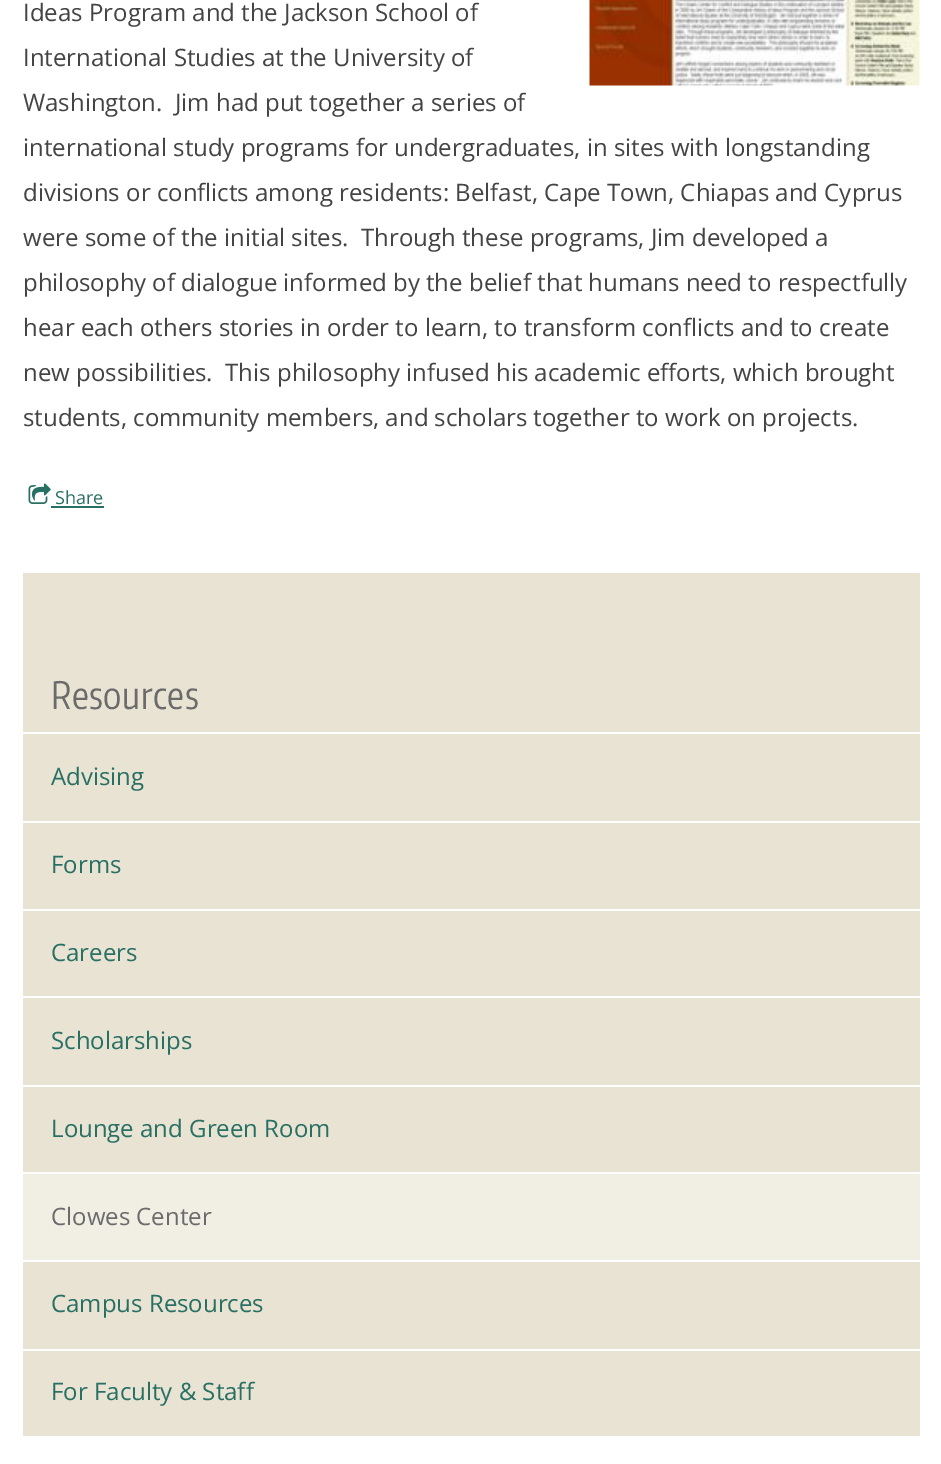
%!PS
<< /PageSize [941 1464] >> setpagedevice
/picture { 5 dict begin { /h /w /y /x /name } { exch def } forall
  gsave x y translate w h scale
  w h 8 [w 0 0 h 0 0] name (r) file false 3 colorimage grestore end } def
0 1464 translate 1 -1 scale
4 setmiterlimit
1 setgray
0 0 941 1464 rectfill
(img1.rgb) 589 0 331 86 picture
/OpenSans-Regular [24 0 0 -24 0 0] selectfont
0.267 setgray
23 21 moveto (Ideas Program and the Jackson School of) show
23 66 moveto (International Studies at the University of) show
23 111 moveto (Washington.  Jim had put together a series of) show
23 156 moveto (international study programs for undergraduates, in sites with longstanding) show
23 201 moveto (divisions or conflicts among residents: Belfast, Cape Town, Chiapas and Cyprus) show
23 246 moveto (were some of the initial sites.  Through these programs, Jim developed a) show
23 291 moveto (philosophy of dialogue informed by the belief that humans need to respectfully) show
23 336 moveto (hear each others stories in order to learn, to transform conflicts and to create) show
23 381 moveto (new possibilities.  This philosophy infused his academic efforts, which brought) show
23 426 moveto (students, community members, and scholars together to work on projects.) show
(img2.rgb) 28 483 23 21 picture
/OpenSans-Regular [18 0 0 -18 0 0] selectfont
0.161 0.439 0.392 setrgbcolor
55 504 moveto (Share) show
51 506 53 2 rectfill
0.91 0.89 0.827 setrgbcolor
23 573 897 863 rectfill
/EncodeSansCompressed-Regular [37.5 0 0 -37.5 0 0] selectfont
0.42 setgray
51 709 moveto 0.5 0 (Resources) ashow
1 setgray
23 732 897 2 rectfill
/OpenSans-Regular [24 0 0 -24 0 0] selectfont
0.161 0.439 0.392 setrgbcolor
51 785 moveto (Advising) show
1 setgray
23 821 897 2 rectfill
0.161 0.439 0.392 setrgbcolor
51 873 moveto (Forms) show
1 setgray
23 909 897 2 rectfill
0.161 0.439 0.392 setrgbcolor
51 961 moveto (Careers) show
1 setgray
23 996 897 2 rectfill
0.161 0.439 0.392 setrgbcolor
51 1049 moveto (Scholarships) show
1 setgray
23 1085 897 2 rectfill
0.161 0.439 0.392 setrgbcolor
51 1137 moveto (Lounge and Green Room) show
0.945 0.933 0.894 setrgbcolor
23 1174 897 86 rectfill
1 setgray
23 1172 897 2 rectfill
0.42 setgray
51 1225 moveto (Clowes Center) show
1 setgray
23 1260 897 2 rectfill
0.161 0.439 0.392 setrgbcolor
51 1312 moveto (Campus Resources) show
1 setgray
23 1349 897 2 rectfill
0.161 0.439 0.392 setrgbcolor
51 1400 moveto (For Faculty & Staff) show
showpage
